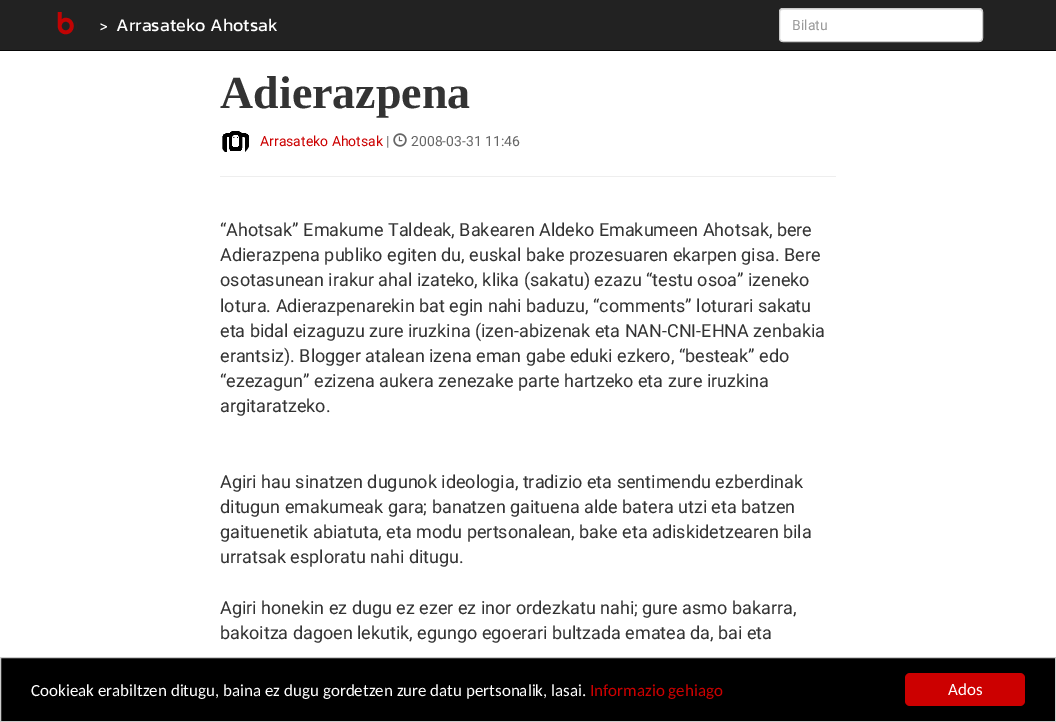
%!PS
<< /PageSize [1056 722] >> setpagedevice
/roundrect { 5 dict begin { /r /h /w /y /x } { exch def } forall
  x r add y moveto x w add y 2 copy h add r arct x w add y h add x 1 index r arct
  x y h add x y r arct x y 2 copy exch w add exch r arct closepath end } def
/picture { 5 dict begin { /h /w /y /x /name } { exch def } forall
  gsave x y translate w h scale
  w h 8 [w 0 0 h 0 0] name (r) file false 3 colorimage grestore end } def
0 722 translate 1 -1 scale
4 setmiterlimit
1 setgray
0 0 1056 722 rectfill
0.133 setgray
0 0 1056 50 rectfill
0.031 setgray
0 50 1056 1 rectfill
(img1.rgb) 57 12 20 23 picture
/Kanit-Regular [14 0 0 -14 0 0] selectfont
1 setgray
100 31 moveto (>) show
/Kanit-Regular [18 0 0 -18 0 0] selectfont
116 31 moveto (Arrasateko Ahotsak) show
779 8 204 34 4 roundrect fill
0.925 setgray
newpath 783 10 moveto 979 10 lineto 981 10 982 11 982 13 curveto 982 11 981 9 979 9 curveto 783 9 lineto 781 9 780 11 780 13 curveto 780 11 781 10 783 10 curveto closepath fill
0.8 setgray
779.5 8.5 203 33 3.5 roundrect stroke
/Roboto-Regular [14 0 0 -14 0 0] selectfont
0.6 setgray
792 30 moveto (Bilatu) show
/LiberationSerif-Bold [46 0 0 -46 0 0] selectfont
0.2 setgray
220 108 moveto (Adierazpena) show
(img2.rgb) 222 131 27 21 picture
/Roboto-Regular [14 0 0 -14 0 0] selectfont
0.8 0 0 setrgbcolor
260 146 moveto (Arrasateko Ahotsak) show
0.4 setgray
386 146 moveto (|) show
(img3.rgb) 393 133 14 14 picture
411 146 moveto (2008-03-31 11:46) show
0.933 setgray
220 176 616 1 rectfill
/Roboto-Regular [18 0 0 -18 0 0] selectfont
0.2 setgray
220 236 moveto (“Ahotsak” Emakume Taldeak, Bakearen Aldeko Emakumeen Ahotsak, bere) show
220 261 moveto (Adierazpena publiko egiten du, euskal bake prozesuaren ekarpen gisa. Bere) show
220 286 moveto (osotasunean irakur ahal izateko, klika \(sakatu\) ezazu “testu osoa” izeneko) show
220 312 moveto (lotura. Adierazpenarekin bat egin nahi baduzu, “comments” loturari sakatu) show
220 337 moveto (eta bidal eizaguzu zure iruzkina \(izen-abizenak eta NAN-CNI-EHNA zenbakia) show
220 362 moveto (erantsiz\). Blogger atalean izena eman gabe eduki ezkero, “besteak” edo) show
220 387 moveto (“ezezagun” ezizena aukera zenezake parte hartzeko eta zure iruzkina) show
220 412 moveto (argitaratzeko.) show
220 488 moveto (Agiri hau sinatzen dugunok ideologia, tradizio eta sentimendu ezberdinak) show
220 513 moveto (ditugun emakumeak gara; banatzen gaituena alde batera utzi eta batzen) show
220 538 moveto (gaituenetik abiatuta, eta modu pertsonalean, bake eta adiskidetzearen bila) show
220 563 moveto (urratsak esploratu nahi ditugu.) show
220 614 moveto (Agiri honekin ez dugu ez ezer ez inor ordezkatu nahi; gure asmo bakarra,) show
220 639 moveto (bakoitza dagoen lekutik, egungo egoerari bultzada ematea da, bai eta) show
0 setgray
newpath 0.5 657.5 moveto 1055.5 657.5 lineto 1055.5 721.5 lineto 0.5 721.5 lineto closepath gsave fill grestore
0.8 setgray
stroke
/Carlito-Regular [17 0 0 -17 0 0] selectfont
1 setgray
31 696 moveto (Cookieak erabiltzen ditugu, baina ez dugu gordetzen zure datu pertsonalik, lasai.) show
0.8 0 0 setrgbcolor
590 696 moveto (Informazio gehiago) show
905 673 120 33 5 roundrect fill
1 setgray
948 695 moveto (Ados) show
showpage
